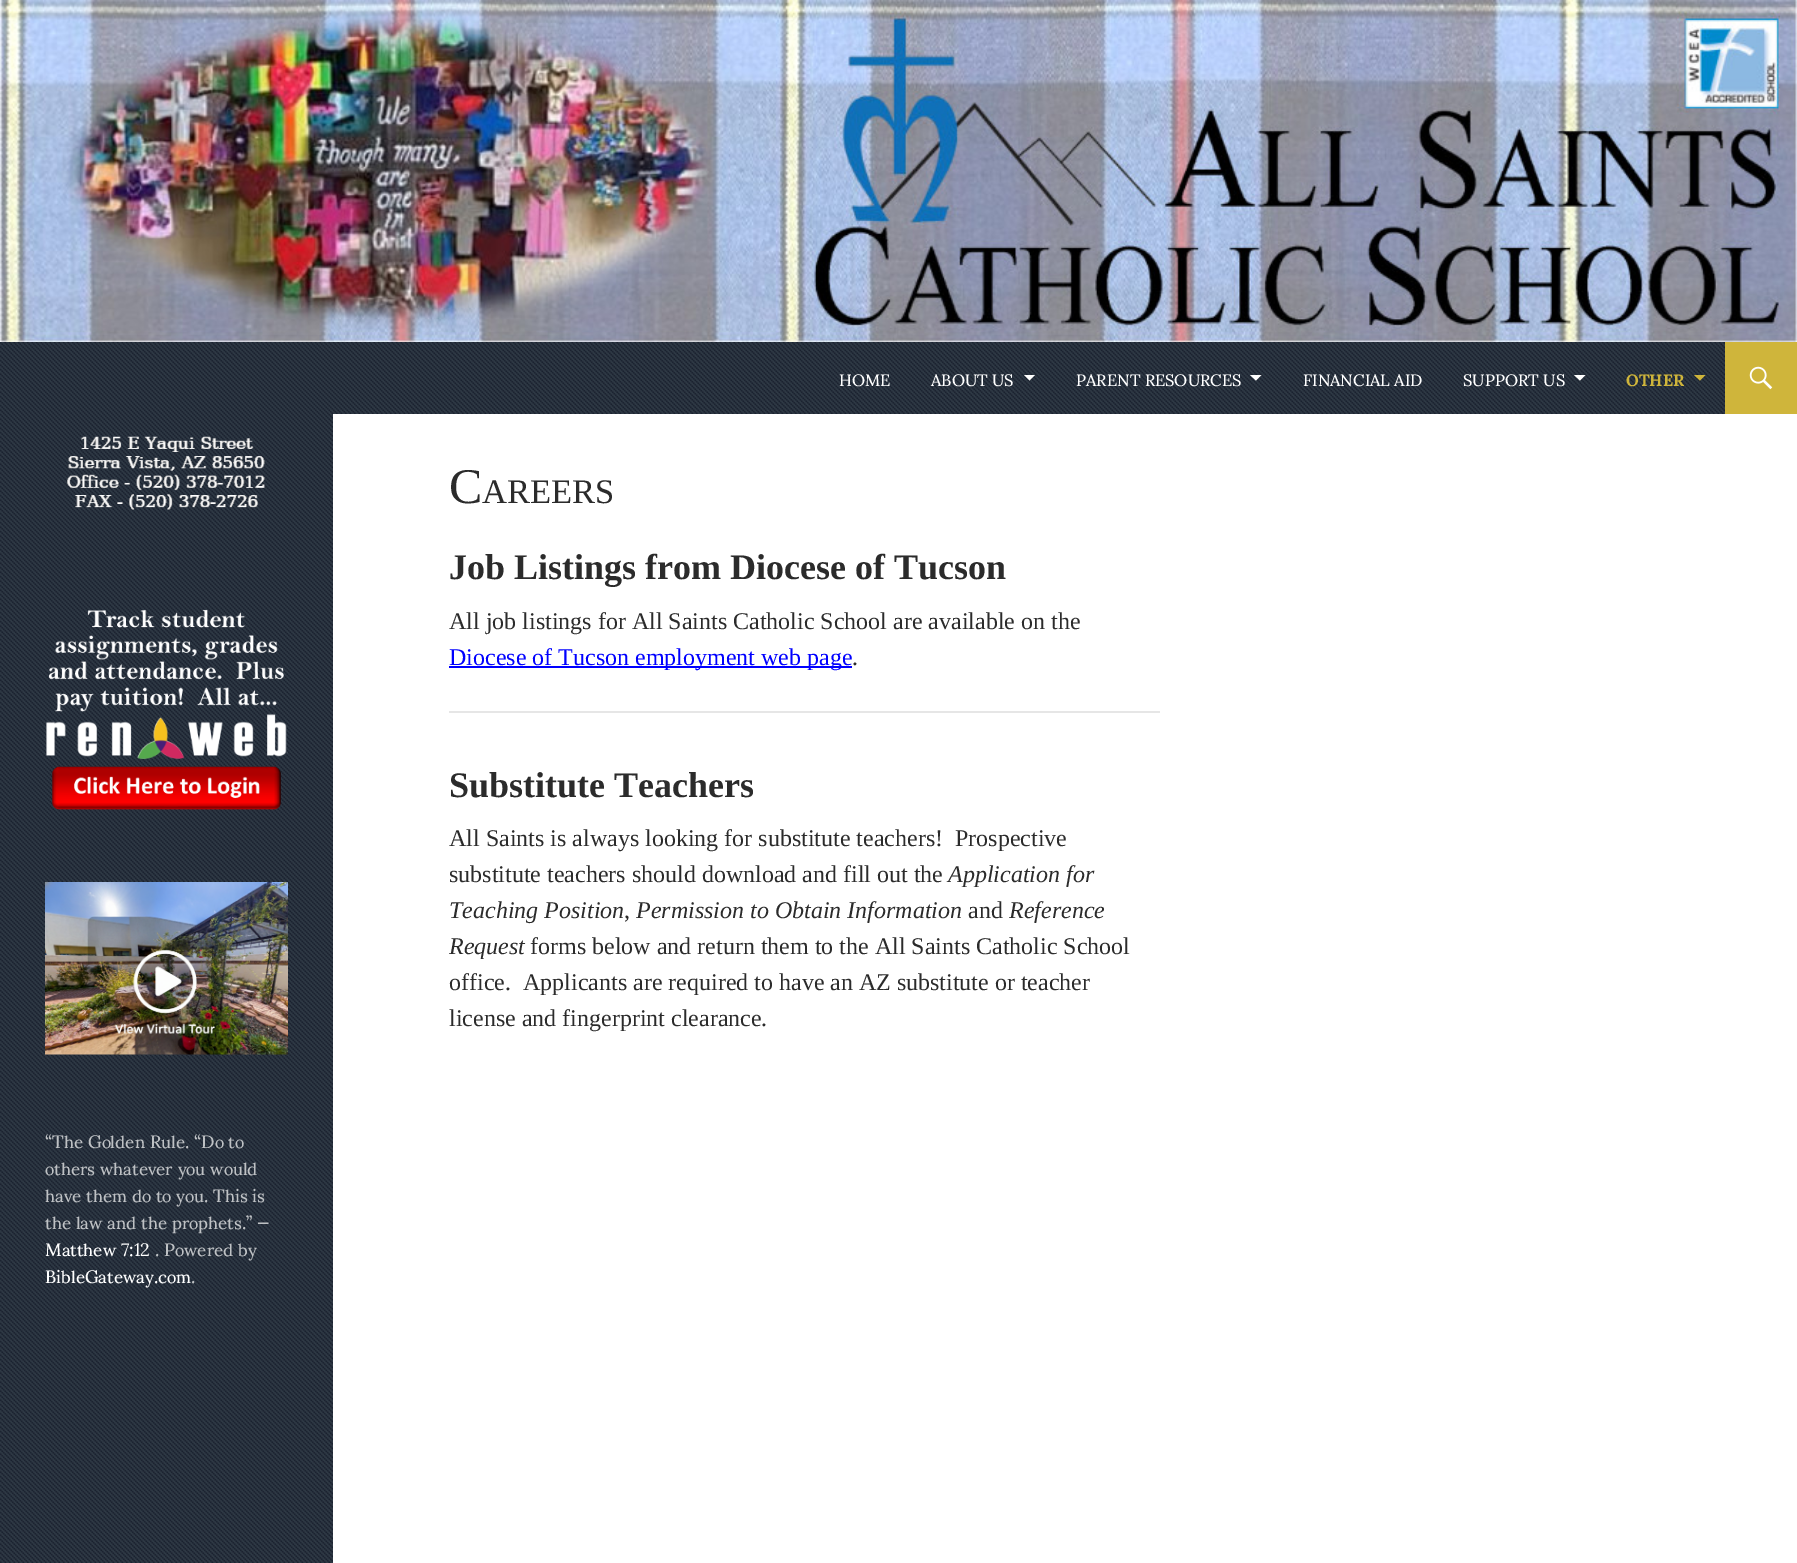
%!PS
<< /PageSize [1797 1563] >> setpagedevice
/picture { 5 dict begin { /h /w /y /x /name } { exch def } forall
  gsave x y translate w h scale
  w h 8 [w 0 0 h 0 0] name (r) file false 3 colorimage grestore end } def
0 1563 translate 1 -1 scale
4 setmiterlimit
1 setgray
0 0 1797 1563 rectfill
(img1.rgb) 0 0 1797 342 picture
(img2.rgb) 0 342 1725 72 picture
/Sumana-Regular [16.5 0 0 -16.5 0 0] selectfont
839 386 moveto (HOME) show
931 386 moveto (ABOUT US) show
newpath 1024 375 moveto 1035 375 lineto 1029.5 380.5 lineto closepath fill
1076 386 moveto (PARENT RESOURCES) show
newpath 1250 375 moveto 1261.5 375 lineto 1256 380.5 lineto closepath fill
1303 386 moveto (FINANCIAL AID) show
1463 386 moveto (SUPPORT US) show
newpath 1574 375 moveto 1585.5 375 lineto 1580 380.5 lineto closepath fill
/Sumana-Bold [16.5 0 0 -16.5 0 0] selectfont
0.812 0.71 0.231 setrgbcolor
1626 386 moveto (OTHER) show
newpath 1694 375 moveto 1705.5 375 lineto 1700 380.5 lineto closepath fill
1725 342 72 72 rectfill
(img3.rgb) 1749 366 24 24 picture
/LiberationSerif-Regular [50 0 0 -50 0 0] selectfont
0.169 setgray
449 503 moveto (C) show
/LiberationSerif-Regular [34.5 0 0 -34.5 0 0] selectfont
482 503 moveto (AREERS) show
/LiberationSerif-Bold [36 0 0 -36 0 0] selectfont
449 579 moveto (Job Listings from Diocese of Tucson) show
/LiberationSerif-Regular [24 0 0 -24 0 0] selectfont
449 629 moveto (All job listings for All Saints Catholic School are available on the) show
0 0 1 setrgbcolor
449 666 403 2 rectfill
449 665 moveto (Diocese of Tucson employment web page) show
0.169 setgray
852 665 moveto (.) show
0.902 setgray
449 711 711 2 rectfill
/LiberationSerif-Bold [36 0 0 -36 0 0] selectfont
0.169 setgray
449 797 moveto (Substitute Teachers) show
/LiberationSerif-Regular [24 0 0 -24 0 0] selectfont
449 846 moveto (All Saints is always looking for substitute teachers!  Prospective) show
449 882 moveto (substitute teachers should download and fill out the) show
/LiberationSerif-Italic [24 0 0 -24 0 0] selectfont
948 882 moveto (Application for) show
449 918 moveto (Teaching Position) show
/LiberationSerif-Regular [24 0 0 -24 0 0] selectfont
624 918 moveto (,) show
/LiberationSerif-Italic [24 0 0 -24 0 0] selectfont
636 918 moveto (Permission to Obtain Information) show
/LiberationSerif-Regular [24 0 0 -24 0 0] selectfont
968 918 moveto (and) show
/LiberationSerif-Italic [24 0 0 -24 0 0] selectfont
1009 918 moveto (Reference) show
449 954 moveto (Request) show
/LiberationSerif-Regular [24 0 0 -24 0 0] selectfont
530 954 moveto (forms below and return them to the All Saints Catholic School) show
449 990 moveto (office.  Applicants are required to have an AZ substitute or teacher) show
449 1026 moveto (license and fingerprint clearance.) show
(img4.rgb) 0 414 333 1149 picture
(img5.rgb) 67 436 198 74 picture
(img6.rgb) 46 609 242 201 picture
(img7.rgb) 45 882 243 173 picture
/Sumana-Regular [18 0 0 -18 0 0] selectfont
0.745 0.757 0.769 setrgbcolor
45 1148 moveto (“The Golden Rule.) show
194 1148 moveto (“Do to) show
45 1175 moveto (others whatever you would) show
45 1202 moveto (have them do to you. This is) show
45 1229 moveto (the law and the prophets.” —) show
1 setgray
45 1256 moveto (Matthew 7:12) show
0.745 0.757 0.769 setrgbcolor
155 1256 moveto (. Powered by) show
1 setgray
45 1283 moveto (BibleGateway.com) show
0.745 0.757 0.769 setrgbcolor
191 1283 moveto (.) show
showpage
